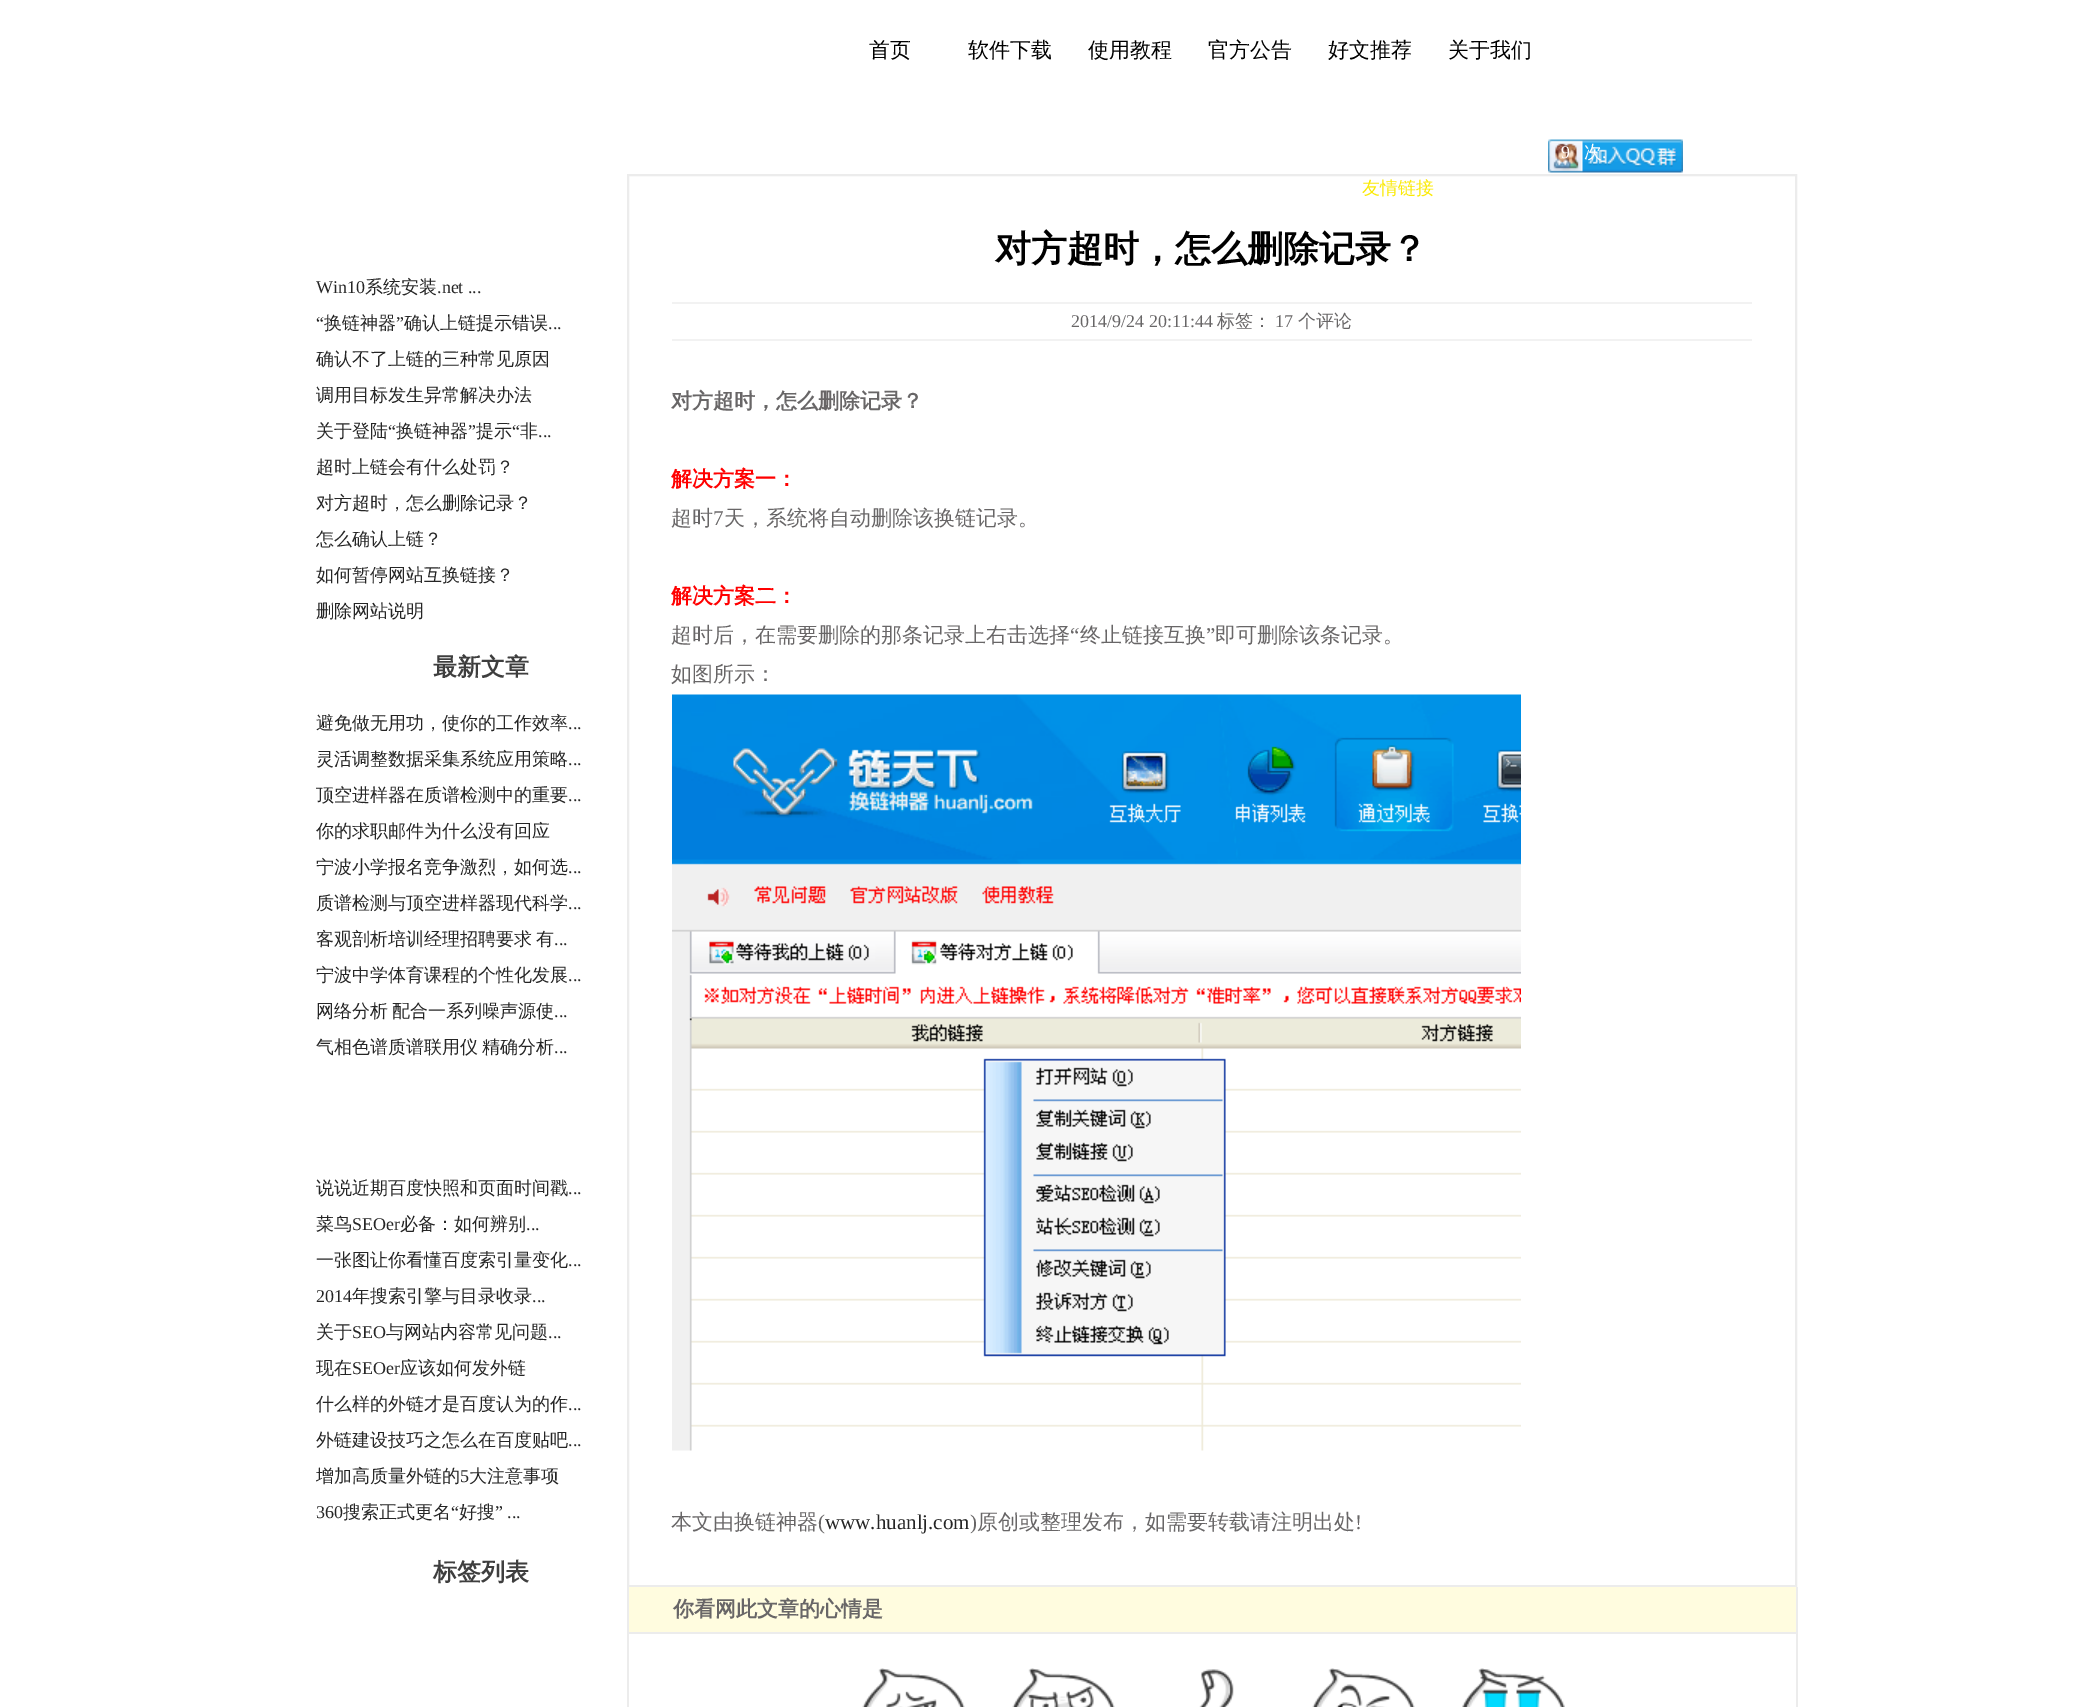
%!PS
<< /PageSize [2095 1707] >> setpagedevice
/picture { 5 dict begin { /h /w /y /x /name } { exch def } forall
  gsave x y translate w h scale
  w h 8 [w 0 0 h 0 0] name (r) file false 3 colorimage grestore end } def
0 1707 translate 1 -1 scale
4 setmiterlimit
1 setgray
0 0 2095 1707 rectfill
/WenQuanYiZenHei-Medium [21 0 0 -21 0 0] selectfont
0 setgray
869 57 moveto (首页) show
968 57 moveto (软件下载) show
1088 57 moveto (使用教程) show
1208 57 moveto (官方公告) show
1328 57 moveto (好文推荐) show
1448 57 moveto (关于我们) show
(img1.rgb) 1548 139 135 34 picture
/LiberationSerif-Regular [18 0 0 -18 0 0] selectfont
1 setgray
1561 158 moveto (9) show
/WenQuanYiZenHei-Medium [18 0 0 -18 0 0] selectfont
1584 158 moveto (次) show
/LiberationSerif-Regular [18 0 0 -18 0 0] selectfont
1602 158 moveto (.) show
0.925 setgray
2 setlinewidth
628 175 1168 1411 rectstroke
/WenQuanYiZenHei-Medium [18 0 0 -18 0 0] selectfont
0.984 0.918 0.012 setrgbcolor
1362 194 moveto (友情链接) show
/LiberationSerif-Regular [18 0 0 -18 0 0] selectfont
0.145 setgray
316 293 moveto (Win10) show
/WenQuanYiZenHei-Medium [18 0 0 -18 0 0] selectfont
365 293 moveto (系统安装) show
/LiberationSerif-Regular [18 0 0 -18 0 0] selectfont
437 293 moveto (.net ...) show
316 329 moveto (“) show
/WenQuanYiZenHei-Medium [18 0 0 -18 0 0] selectfont
324 329 moveto (换链神器) show
/LiberationSerif-Regular [18 0 0 -18 0 0] selectfont
396 329 moveto (”) show
/WenQuanYiZenHei-Medium [18 0 0 -18 0 0] selectfont
404 329 moveto (确认上链提示错误) show
/LiberationSerif-Regular [18 0 0 -18 0 0] selectfont
548 329 moveto (...) show
/WenQuanYiZenHei-Medium [18 0 0 -18 0 0] selectfont
316 365 moveto (确认不了上链的三种常见原因) show
316 401 moveto (调用目标发生异常解决办法) show
316 437 moveto (关于登陆) show
/LiberationSerif-Regular [18 0 0 -18 0 0] selectfont
388 437 moveto (“) show
/WenQuanYiZenHei-Medium [18 0 0 -18 0 0] selectfont
396 437 moveto (换链神器) show
/LiberationSerif-Regular [18 0 0 -18 0 0] selectfont
468 437 moveto (”) show
/WenQuanYiZenHei-Medium [18 0 0 -18 0 0] selectfont
476 437 moveto (提示) show
/LiberationSerif-Regular [18 0 0 -18 0 0] selectfont
512 437 moveto (“) show
/WenQuanYiZenHei-Medium [18 0 0 -18 0 0] selectfont
520 437 moveto (非) show
/LiberationSerif-Regular [18 0 0 -18 0 0] selectfont
538 437 moveto (...) show
/WenQuanYiZenHei-Medium [18 0 0 -18 0 0] selectfont
316 473 moveto (超时上链会有什么处罚？) show
316 509 moveto (对方超时，怎么删除记录？) show
316 545 moveto (怎么确认上链？) show
316 581 moveto (如何暂停网站互换链接？) show
316 617 moveto (删除网站说明) show
/WenQuanYiZenHei-Bold [24 0 0 -24 0 0] selectfont
0.243 setgray
433 675 moveto (最新文章) show
/WenQuanYiZenHei-Medium [18 0 0 -18 0 0] selectfont
0.145 setgray
316 729 moveto (避免做无用功，使你的工作效率) show
/LiberationSerif-Regular [18 0 0 -18 0 0] selectfont
568 729 moveto (...) show
/WenQuanYiZenHei-Medium [18 0 0 -18 0 0] selectfont
316 765 moveto (灵活调整数据采集系统应用策略) show
/LiberationSerif-Regular [18 0 0 -18 0 0] selectfont
568 765 moveto (...) show
/WenQuanYiZenHei-Medium [18 0 0 -18 0 0] selectfont
316 801 moveto (顶空进样器在质谱检测中的重要) show
/LiberationSerif-Regular [18 0 0 -18 0 0] selectfont
568 801 moveto (...) show
/WenQuanYiZenHei-Medium [18 0 0 -18 0 0] selectfont
316 837 moveto (你的求职邮件为什么没有回应) show
316 873 moveto (宁波小学报名竞争激烈，如何选) show
/LiberationSerif-Regular [18 0 0 -18 0 0] selectfont
568 873 moveto (...) show
/WenQuanYiZenHei-Medium [18 0 0 -18 0 0] selectfont
316 909 moveto (质谱检测与顶空进样器现代科学) show
/LiberationSerif-Regular [18 0 0 -18 0 0] selectfont
568 909 moveto (...) show
/WenQuanYiZenHei-Medium [18 0 0 -18 0 0] selectfont
316 945 moveto -1 0 32 (客观剖析培训经理招聘要求 有) widthshow
/LiberationSerif-Regular [18 0 0 -18 0 0] selectfont
554 945 moveto (...) show
/WenQuanYiZenHei-Medium [18 0 0 -18 0 0] selectfont
316 981 moveto (宁波中学体育课程的个性化发展) show
/LiberationSerif-Regular [18 0 0 -18 0 0] selectfont
568 981 moveto (...) show
/WenQuanYiZenHei-Medium [18 0 0 -18 0 0] selectfont
316 1017 moveto -1 0 32 (网络分析 配合一系列噪声源使) widthshow
/LiberationSerif-Regular [18 0 0 -18 0 0] selectfont
554 1017 moveto (...) show
/WenQuanYiZenHei-Medium [18 0 0 -18 0 0] selectfont
316 1053 moveto -1 0 32 (气相色谱质谱联用仪 精确分析) widthshow
/LiberationSerif-Regular [18 0 0 -18 0 0] selectfont
554 1053 moveto (...) show
/WenQuanYiZenHei-Medium [18 0 0 -18 0 0] selectfont
316 1194 moveto (说说近期百度快照和页面时间戳) show
/LiberationSerif-Regular [18 0 0 -18 0 0] selectfont
568 1194 moveto (...) show
/WenQuanYiZenHei-Medium [18 0 0 -18 0 0] selectfont
316 1230 moveto (菜鸟) show
/LiberationSerif-Regular [18 0 0 -18 0 0] selectfont
352 1230 moveto (SEOer) show
/WenQuanYiZenHei-Medium [18 0 0 -18 0 0] selectfont
400 1230 moveto (必备：如何辨别) show
/LiberationSerif-Regular [18 0 0 -18 0 0] selectfont
526 1230 moveto (...) show
/WenQuanYiZenHei-Medium [18 0 0 -18 0 0] selectfont
316 1266 moveto (一张图让你看懂百度索引量变化) show
/LiberationSerif-Regular [18 0 0 -18 0 0] selectfont
568 1266 moveto (...) show
316 1302 moveto (2014) show
/WenQuanYiZenHei-Medium [18 0 0 -18 0 0] selectfont
352 1302 moveto (年搜索引擎与目录收录) show
/LiberationSerif-Regular [18 0 0 -18 0 0] selectfont
532 1302 moveto (...) show
/WenQuanYiZenHei-Medium [18 0 0 -18 0 0] selectfont
316 1338 moveto (关于) show
/LiberationSerif-Regular [18 0 0 -18 0 0] selectfont
352 1338 moveto (SEO) show
/WenQuanYiZenHei-Medium [18 0 0 -18 0 0] selectfont
386 1338 moveto (与网站内容常见问题) show
/LiberationSerif-Regular [18 0 0 -18 0 0] selectfont
548 1338 moveto (...) show
/WenQuanYiZenHei-Medium [18 0 0 -18 0 0] selectfont
316 1374 moveto (现在) show
/LiberationSerif-Regular [18 0 0 -18 0 0] selectfont
352 1374 moveto (SEOer) show
/WenQuanYiZenHei-Medium [18 0 0 -18 0 0] selectfont
400 1374 moveto (应该如何发外链) show
316 1410 moveto (什么样的外链才是百度认为的作) show
/LiberationSerif-Regular [18 0 0 -18 0 0] selectfont
568 1410 moveto (...) show
/WenQuanYiZenHei-Medium [18 0 0 -18 0 0] selectfont
316 1446 moveto (外链建设技巧之怎么在百度贴吧) show
/LiberationSerif-Regular [18 0 0 -18 0 0] selectfont
568 1446 moveto (...) show
/WenQuanYiZenHei-Medium [18 0 0 -18 0 0] selectfont
316 1482 moveto (增加高质量外链的) show
/LiberationSerif-Regular [18 0 0 -18 0 0] selectfont
460 1482 moveto (5) show
/WenQuanYiZenHei-Medium [18 0 0 -18 0 0] selectfont
469 1482 moveto (大注意事项) show
/LiberationSerif-Regular [18 0 0 -18 0 0] selectfont
316 1518 moveto (360) show
/WenQuanYiZenHei-Medium [18 0 0 -18 0 0] selectfont
343 1518 moveto (搜索正式更名) show
/LiberationSerif-Regular [18 0 0 -18 0 0] selectfont
451 1518 moveto (“) show
/WenQuanYiZenHei-Medium [18 0 0 -18 0 0] selectfont
459 1518 moveto (好搜) show
/LiberationSerif-Regular [18 0 0 -18 0 0] selectfont
495 1518 moveto (” ...) show
/WenQuanYiZenHei-Bold [24 0 0 -24 0 0] selectfont
0.243 setgray
433 1580 moveto (标签列表) show
/WenQuanYiZenHei-Bold [36 0 0 -36 0 0] selectfont
0 setgray
995 261 moveto (对方超时，怎么删除记录？) show
0.949 setgray
672 302 1080 2 rectfill
672 339 1080 2 rectfill
/LiberationSerif-Regular [18 0 0 -18 0 0] selectfont
0.408 0.4 0.404 setrgbcolor
1071 327 moveto (2014/9/24 20:11:44) show
/WenQuanYiZenHei-Medium [18 0 0 -18 0 0] selectfont
1217 327 moveto (标签：) show
/LiberationSerif-Regular [18 0 0 -18 0 0] selectfont
1275 327 moveto (17) show
/WenQuanYiZenHei-Medium [18 0 0 -18 0 0] selectfont
1298 327 moveto (个评论) show
/WenQuanYiZenHei-Bold [21 0 0 -21 0 0] selectfont
671 408 moveto (对方超时，怎么删除记录？) show
1 0 0 setrgbcolor
671 486 moveto (解决方案一：) show
/WenQuanYiZenHei-Medium [21 0 0 -21 0 0] selectfont
0.408 0.4 0.404 setrgbcolor
671 525 moveto (超时) show
/LiberationSerif-Regular [21 0 0 -21 0 0] selectfont
713 525 moveto (7) show
/WenQuanYiZenHei-Medium [21 0 0 -21 0 0] selectfont
724 525 moveto (天，系统将自动删除该换链记录。) show
/WenQuanYiZenHei-Bold [21 0 0 -21 0 0] selectfont
1 0 0 setrgbcolor
671 603 moveto (解决方案二：) show
/WenQuanYiZenHei-Medium [21 0 0 -21 0 0] selectfont
0.408 0.4 0.404 setrgbcolor
671 642 moveto (超时后，在需要删除的那条记录上右击选择) show
/LiberationSerif-Regular [21 0 0 -21 0 0] selectfont
1070 642 moveto (“) show
/WenQuanYiZenHei-Medium [21 0 0 -21 0 0] selectfont
1080 642 moveto (终止链接互换) show
/LiberationSerif-Regular [21 0 0 -21 0 0] selectfont
1206 642 moveto (”) show
/WenQuanYiZenHei-Medium [21 0 0 -21 0 0] selectfont
1215 642 moveto (即可删除该条记录。) show
671 681 moveto (如图所示：) show
(img2.rgb) 672 694 849 757 picture
671 1529 moveto (本文由换链神器) show
/LiberationSerif-Regular [21 0 0 -21 0 0] selectfont
818 1529 moveto (\() show
0.145 setgray
825 1529 moveto (www.huanlj.com) show
0.408 0.4 0.404 setrgbcolor
970 1529 moveto (\)) show
/WenQuanYiZenHei-Medium [21 0 0 -21 0 0] selectfont
977 1529 moveto (原创或整理发布，如需要转载请注明出处) show
/LiberationSerif-Regular [21 0 0 -21 0 0] selectfont
1355 1529 moveto (!) show
1 0.988 0.875 setrgbcolor
629 1587 1167 45 rectfill
0.925 setgray
1796 1587 2 120 rectfill
627 1632 1170 2 rectfill
627 1587 2 120 rectfill
/WenQuanYiZenHei-Bold [21 0 0 -21 0 0] selectfont
0.408 0.4 0.404 setrgbcolor
673 1616 moveto (你看网此文章的心情是) show
(img3.rgb) 862 1668 103 39 picture
(img4.rgb) 1012 1668 103 39 picture
(img5.rgb) 1199 1669 35 38 picture
(img6.rgb) 1312 1668 103 39 picture
(img7.rgb) 1462 1668 103 39 picture
showpage
